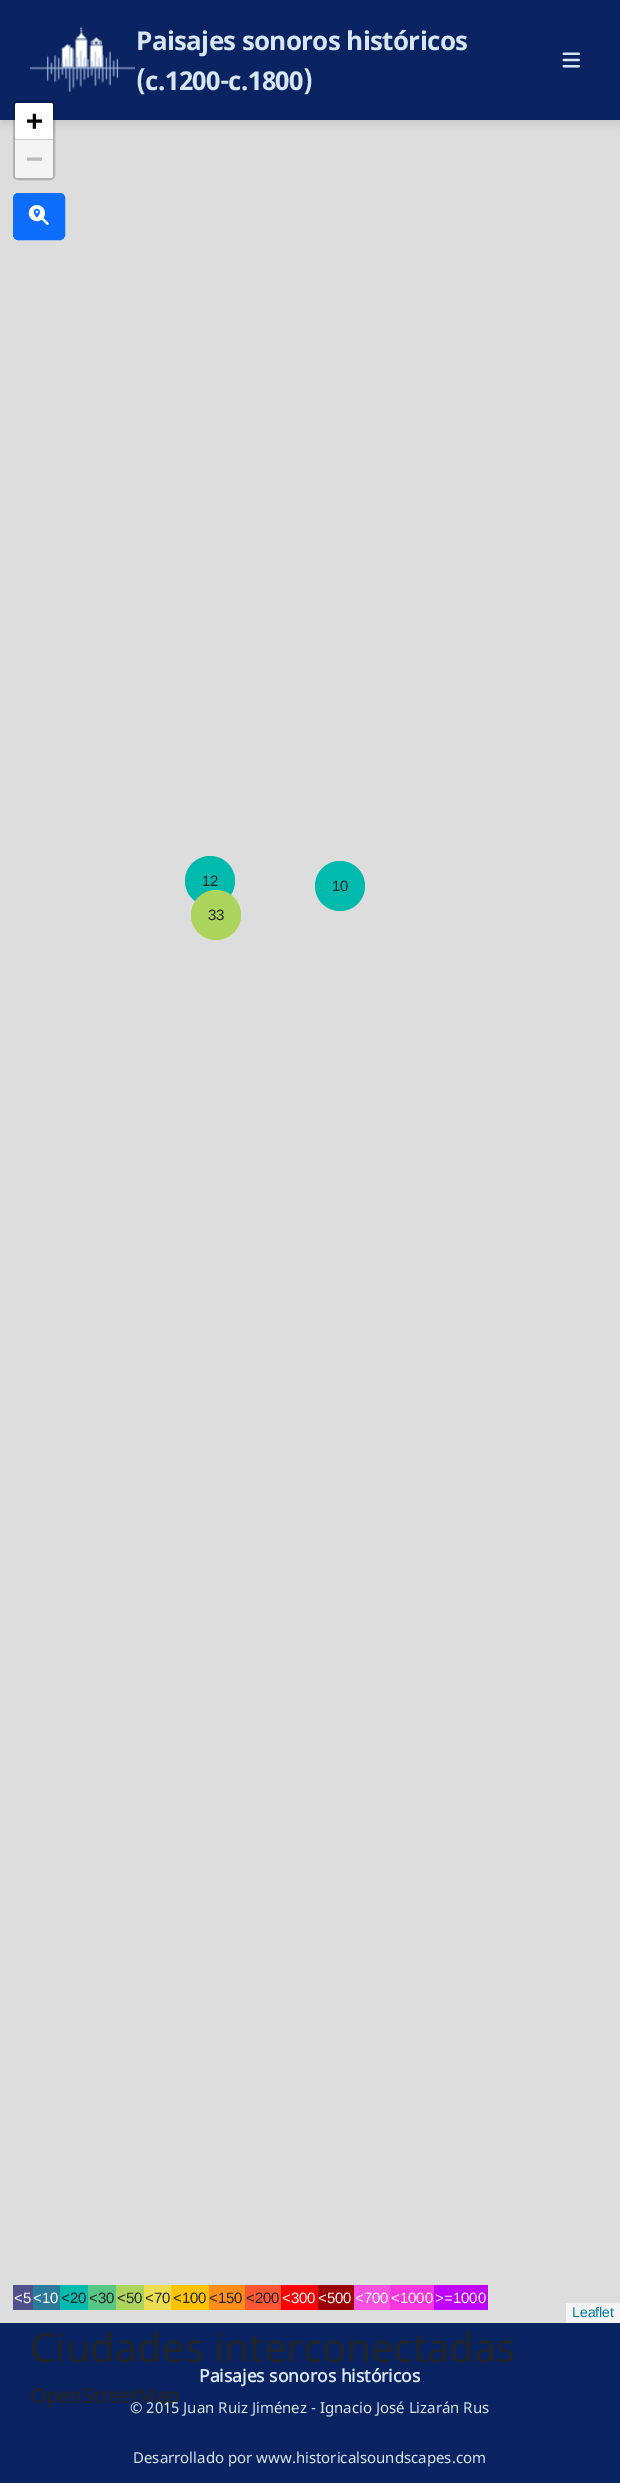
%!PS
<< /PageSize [620 2483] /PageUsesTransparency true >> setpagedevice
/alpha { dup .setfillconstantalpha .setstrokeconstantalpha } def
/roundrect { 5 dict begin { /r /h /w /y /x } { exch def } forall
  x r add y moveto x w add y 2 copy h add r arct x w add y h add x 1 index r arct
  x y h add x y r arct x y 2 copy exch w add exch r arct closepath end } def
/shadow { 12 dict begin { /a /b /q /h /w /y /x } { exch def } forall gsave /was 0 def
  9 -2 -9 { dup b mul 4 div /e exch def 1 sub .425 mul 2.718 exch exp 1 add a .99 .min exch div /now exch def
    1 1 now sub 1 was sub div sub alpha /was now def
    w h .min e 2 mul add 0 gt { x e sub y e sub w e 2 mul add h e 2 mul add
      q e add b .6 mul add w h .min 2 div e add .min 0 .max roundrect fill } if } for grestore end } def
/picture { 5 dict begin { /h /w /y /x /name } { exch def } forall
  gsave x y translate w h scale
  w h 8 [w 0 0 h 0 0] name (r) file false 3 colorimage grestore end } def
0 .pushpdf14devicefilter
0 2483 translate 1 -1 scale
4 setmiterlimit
0.039 0.141 0.388 setrgbcolor
0 0 620 2483 rectfill
0.867 setgray
0 120 620 2203 rectfill
0 setgray
1 6 618 118 0 4 0.1 shadow
0.039 0.141 0.388 setrgbcolor
0 3 620 117 rectfill
(img1.rgb) 30 27 106 65 picture
/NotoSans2-Bold [26 0 0 -26 0 0] selectfont
0.847 0.902 0.953 setrgbcolor
136 50 moveto -0.65 0 (Paisajes sonoros históricos) ashow
136 90 moveto -0.65 0 (\(c.1200-c.1800\)) ashow
(img2.rgb) 562 52 18 16 picture
0.2 alpha
0 setgray
3 setlinewidth
14.5 101.5 39 77 3.5 roundrect stroke
1 alpha
1 setgray
newpath 17.5 103 moveto 50.5 103 lineto 52 103 53 104 53 105.5 curveto 53 140 lineto 15 140 lineto 15 105.5 lineto 15 104 16 103 17.5 103 curveto closepath fill
0.8 setgray
15 139 38 1 rectfill
/DejaVuSansMono-Bold [28 0 0 -28 0 0] selectfont
0 setgray
26 130 moveto (+) show
0.957 setgray
newpath 15 140 moveto 53 140 lineto 53 175.5 lineto 53 177 52 178 50.5 178 curveto 17.5 178 lineto 16 178 15 177 15 175.5 curveto closepath fill
0.733 setgray
26 168 moveto (−) show
0.051 0.431 0.992 setrgbcolor
13.5 193.5 51 46 4.5 roundrect gsave fill grestore
1 setlinewidth
stroke
(img3.rgb) 28 205 21 20 picture
0.314 0.314 0.553 setrgbcolor
13 2285 20 25 rectfill
/LiberationSans-Regular [15 0 0 -15 0 0] selectfont
1 setgray
14 2303 moveto (<5) show
0.165 0.482 0.608 setrgbcolor
33 2285 27 25 rectfill
1 setgray
33 2303 moveto (<10) show
0 0.729 0.678 setrgbcolor
60 2285 28 25 rectfill
0.129 0.145 0.161 setrgbcolor
61 2303 moveto (<20) show
0.341 0.78 0.522 setrgbcolor
88 2285 28 25 rectfill
0.129 0.145 0.161 setrgbcolor
89 2303 moveto (<30) show
0.678 0.831 0.361 setrgbcolor
116 2285 28 25 rectfill
0.129 0.145 0.161 setrgbcolor
117 2303 moveto (<50) show
0.929 0.867 0.325 setrgbcolor
144 2285 27 25 rectfill
0.129 0.145 0.161 setrgbcolor
145 2303 moveto (<70) show
1 0.765 0 setrgbcolor
171 2285 38 25 rectfill
0.129 0.145 0.161 setrgbcolor
173 2303 moveto (<100) show
1 0.553 0.102 setrgbcolor
209 2285 36 25 rectfill
0.129 0.145 0.161 setrgbcolor
209 2303 moveto (<150) show
1 0.341 0.2 setrgbcolor
245 2285 36 25 rectfill
0.129 0.145 0.161 setrgbcolor
246 2303 moveto (<200) show
1 0 0 setrgbcolor
281 2285 37 25 rectfill
1 setgray
282 2303 moveto (<300) show
0.616 0 0 setrgbcolor
318 2285 36 25 rectfill
1 setgray
318 2303 moveto (<500) show
0.973 0.318 0.886 setrgbcolor
354 2285 36 25 rectfill
1 setgray
355 2303 moveto (<700) show
0.969 0.216 0.867 setrgbcolor
390 2285 44 25 rectfill
1 setgray
391 2303 moveto (<1000) show
0.749 0 1 setrgbcolor
434 2285 54 25 rectfill
1 setgray
435 2303 moveto (>=1000) show
0.961 setgray
566 2303 54 20 rectfill
/LiberationSans-Regular [14 0 0 -14 0 0] selectfont
0 0.471 0.659 setrgbcolor
572 2317 moveto (Leaflet) show
0 0.729 0.678 setrgbcolor
newpath 210 881 25 0 360 arc closepath fill
/LiberationSans-Regular [15 0 0 -15 0 0] selectfont
0.129 0.145 0.161 setrgbcolor
202 886 moveto (12) show
0 0.729 0.678 setrgbcolor
newpath 340 886 25 0 360 arc closepath fill
0.129 0.145 0.161 setrgbcolor
332 891 moveto (10) show
0.678 0.831 0.361 setrgbcolor
newpath 216 915 25 0 360 arc closepath fill
0.129 0.145 0.161 setrgbcolor
208 920 moveto (33) show
/NotoSans-Regular [40 0 0 -40 0 0] selectfont
30 2362 moveto (Ciudades interconectadas) show
/NotoSans-Bold [20 0 0 -20 0 0] selectfont
30 2403 moveto (OpenStreetMap) show
/NotoSans-Bold [17.5 0 0 -17.5 0 0] selectfont
0.847 0.902 0.953 setrgbcolor
199 2382 moveto (Paisajes sonoros históricos) show
/NotoSans-Regular [15 0 0 -15 0 0] selectfont
130 2413 moveto (© 2015 Juan Ruiz Jiménez - Ignacio José Lizarán Rus) show
133 2463 moveto (Desarrollado por www.historicalsoundscapes.com) show
.poppdf14devicefilter showpage
